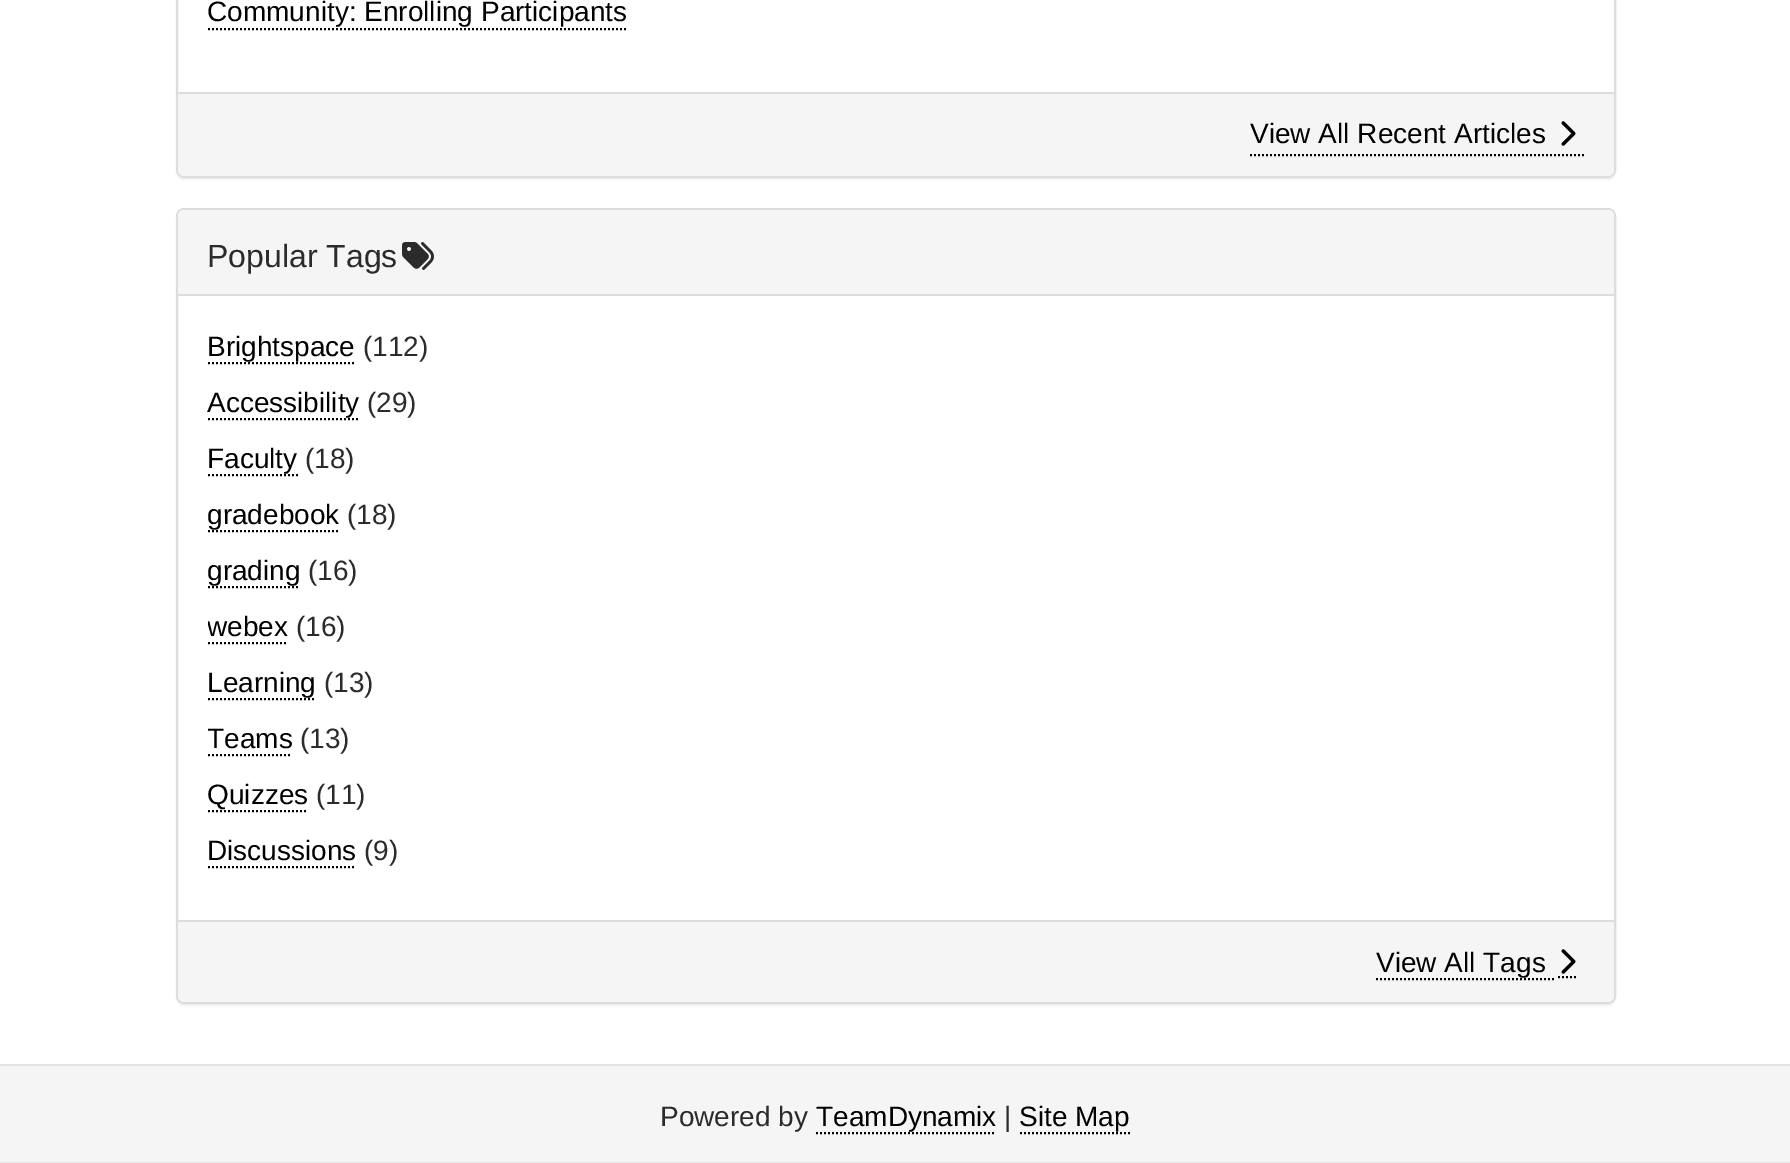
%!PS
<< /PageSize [1790 1163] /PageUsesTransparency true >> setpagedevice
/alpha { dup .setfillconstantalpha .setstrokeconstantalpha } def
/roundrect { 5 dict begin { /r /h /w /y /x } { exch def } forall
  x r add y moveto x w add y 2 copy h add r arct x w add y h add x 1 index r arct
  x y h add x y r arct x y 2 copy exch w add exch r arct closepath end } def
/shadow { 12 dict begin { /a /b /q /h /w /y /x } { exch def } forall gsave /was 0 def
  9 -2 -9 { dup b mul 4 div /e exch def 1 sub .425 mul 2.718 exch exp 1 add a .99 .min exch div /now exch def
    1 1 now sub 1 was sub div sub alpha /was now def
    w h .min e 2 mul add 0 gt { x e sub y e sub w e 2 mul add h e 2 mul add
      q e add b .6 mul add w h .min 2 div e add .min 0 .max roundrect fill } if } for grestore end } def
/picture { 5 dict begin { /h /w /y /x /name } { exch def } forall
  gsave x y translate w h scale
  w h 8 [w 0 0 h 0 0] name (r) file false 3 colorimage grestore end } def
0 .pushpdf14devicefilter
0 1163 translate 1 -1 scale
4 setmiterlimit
1 setgray
0 0 1790 1163 rectfill
0 setgray
176 -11 1440 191 8 1 0.05 shadow
1 setgray
177 -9 1438 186 7 roundrect gsave fill grestore
0.867 setgray
2 setlinewidth
stroke
/LiberationSans-Regular [28 0 0 -28 0 0] selectfont
0 setgray
207 21 moveto (Community: Enrolling Participants) show
[2 2] 0 setdash
newpath 208 29 moveto 628 29 lineto stroke
0.961 setgray
newpath 178 92 moveto 1614 92 lineto 1614 170 lineto 1614 173.5 1611.5 176 1608 176 curveto 184 176 lineto 180.5 176 178 173.5 178 170 curveto closepath fill
0.867 setgray
178 92 1436 2 rectfill
0 setgray
newpath 1250 155 moveto 1584 155 lineto stroke
1250 143 moveto (View All Recent Articles) show
(img1.rgb) 1561 121 15 25 picture
176 210 1440 796 8 1 0.05 shadow
1 setgray
177 209 1438 794 7 roundrect gsave fill grestore
0.867 setgray
[] 0 setdash
stroke
0.961 setgray
newpath 184 210 moveto 1608 210 lineto 1611.5 210 1614 212.5 1614 216 curveto 1614 296 lineto 178 296 lineto 178 216 lineto 178 212.5 180.5 210 184 210 curveto closepath fill
0.867 setgray
178 294 1436 2 rectfill
/LiberationSans-Regular [32 0 0 -32 0 0] selectfont
0.169 setgray
207 267 moveto (Popular Tags) show
(img2.rgb) 402 242 32 28 picture
/LiberationSans-Regular [28 0 0 -28 0 0] selectfont
0 setgray
207 356 moveto (Brightspace) show
[2 2] 0 setdash
newpath 208 363 moveto 354 363 lineto stroke
0.169 setgray
363 356 moveto (\(112\)) show
0 setgray
207 412 moveto (Accessibility) show
newpath 208 419 moveto 360 419 lineto stroke
0.169 setgray
367 412 moveto (\(29\)) show
0 setgray
207 468 moveto (Faculty) show
newpath 208 475 moveto 298 475 lineto stroke
0.169 setgray
305 468 moveto (\(18\)) show
0 setgray
207 524 moveto (gradebook) show
newpath 208 531 moveto 340 531 lineto stroke
0.169 setgray
347 524 moveto (\(18\)) show
0 setgray
207 580 moveto (grading) show
newpath 208 587 moveto 300 587 lineto stroke
0.169 setgray
308 580 moveto (\(16\)) show
gsave
208 606 1376 40 rectclip
0 setgray
207 636 moveto (webex) show
grestore
0 setgray
newpath 208 643 moveto 288 643 lineto stroke
0.169 setgray
296 636 moveto (\(16\)) show
0 setgray
207 692 moveto (Learning) show
newpath 208 699 moveto 316 699 lineto stroke
0.169 setgray
324 692 moveto (\(13\)) show
gsave
208 718 1376 40 rectclip
0 setgray
207 748 moveto (Teams) show
grestore
0 setgray
newpath 208 755 moveto 292 755 lineto stroke
0.169 setgray
300 748 moveto (\(13\)) show
0 setgray
207 804 moveto (Quizzes) show
newpath 208 811 moveto 308 811 lineto stroke
0.169 setgray
316 804 moveto (\(11\)) show
0 setgray
207 860 moveto (Discussions) show
newpath 208 867 moveto 356 867 lineto stroke
0.169 setgray
364 860 moveto (\(9\)) show
0.961 setgray
newpath 178 920 moveto 1614 920 lineto 1614 996 lineto 1614 999.5 1611.5 1002 1608 1002 curveto 184 1002 lineto 180.5 1002 178 999.5 178 996 curveto closepath fill
0.867 setgray
178 920 1436 2 rectfill
0 setgray
newpath 1376 979 moveto 1554 979 lineto stroke
newpath 1558 977 moveto 1576 977 lineto stroke
1376 972 moveto (View All Tags) show
(img1.rgb) 1561 949 15 25 picture
0.961 setgray
0 1066 1790 96 rectfill
0.89 setgray
0 1064 1790 2 rectfill
0 1162 1790 1 rectfill
0.169 setgray
660 1126 moveto (Powered by) show
0 setgray
816 1126 moveto (TeamDynamix) show
newpath 816 1133 moveto 996 1133 lineto stroke
0.169 setgray
1004 1126 moveto (|) show
0 setgray
1019 1126 moveto (Site Map) show
newpath 1020 1133 moveto 1130 1133 lineto stroke
.poppdf14devicefilter showpage
